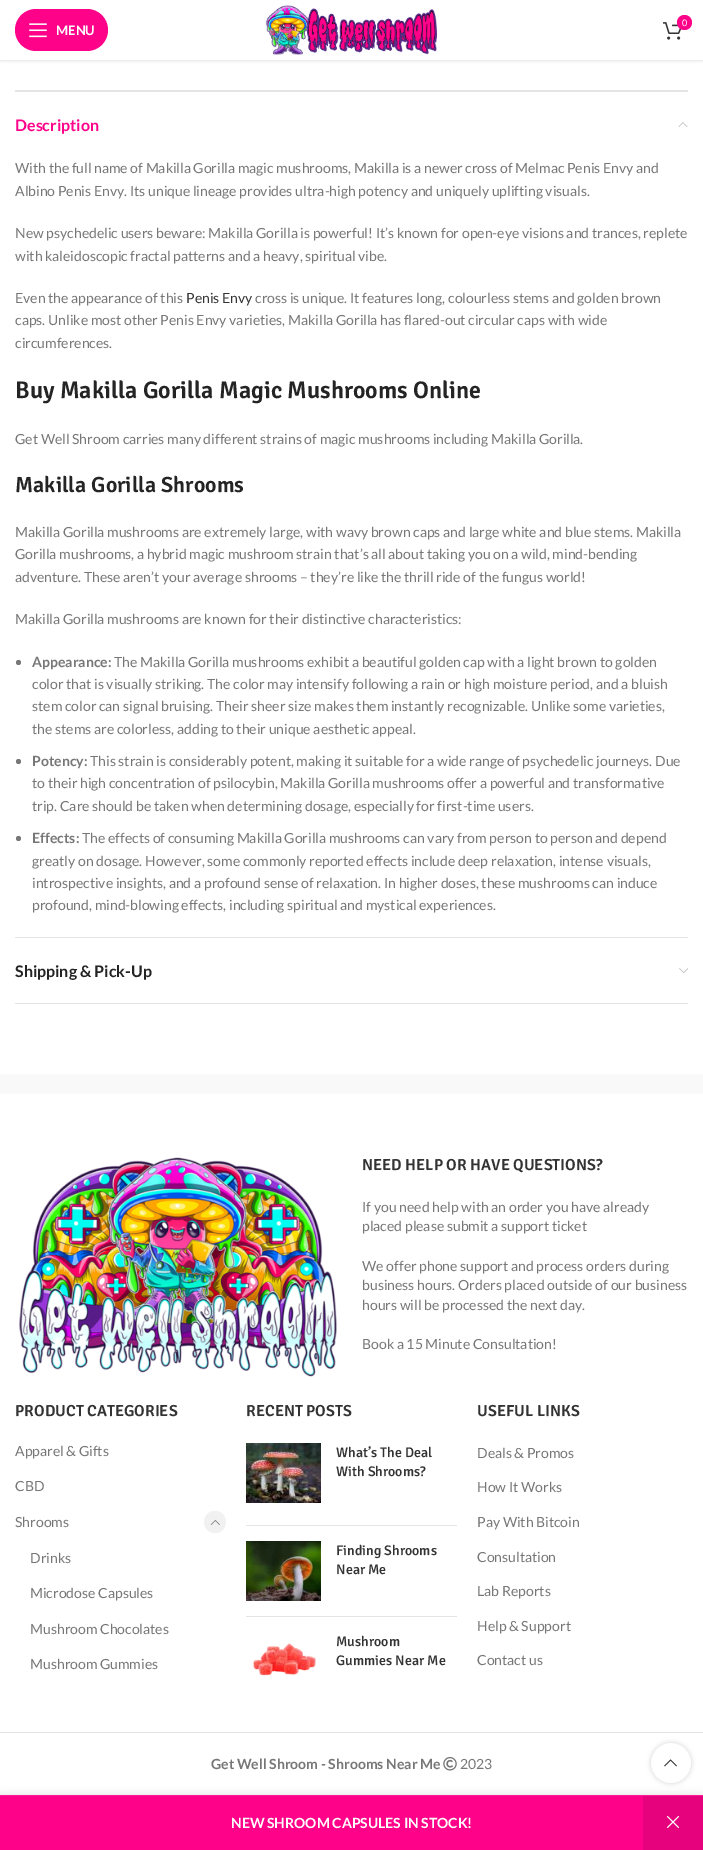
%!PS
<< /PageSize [703 1850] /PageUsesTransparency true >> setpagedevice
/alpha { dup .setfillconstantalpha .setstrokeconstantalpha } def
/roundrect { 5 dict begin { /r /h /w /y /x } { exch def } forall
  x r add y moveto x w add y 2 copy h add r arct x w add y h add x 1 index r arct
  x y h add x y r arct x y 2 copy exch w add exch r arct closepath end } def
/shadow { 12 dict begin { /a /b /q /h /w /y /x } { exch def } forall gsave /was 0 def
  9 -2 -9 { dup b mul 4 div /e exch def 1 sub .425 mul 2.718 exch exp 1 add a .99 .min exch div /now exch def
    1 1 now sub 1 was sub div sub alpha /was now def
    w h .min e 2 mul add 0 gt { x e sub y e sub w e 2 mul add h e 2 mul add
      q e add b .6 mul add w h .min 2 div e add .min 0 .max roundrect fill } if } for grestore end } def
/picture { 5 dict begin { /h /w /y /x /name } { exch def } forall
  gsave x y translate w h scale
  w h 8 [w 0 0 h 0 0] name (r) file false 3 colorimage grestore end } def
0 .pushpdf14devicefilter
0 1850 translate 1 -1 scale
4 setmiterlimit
1 setgray
0 0 703 1850 rectfill
0 setgray
0 1 703 60 0 1.5 0.1 shadow
1 setgray
0 0 703 60 rectfill
(img1.rgb) 266 5 171 50 picture
(img2.rgb) 663 22 19 18 picture
1 0.008 0.541 setrgbcolor
newpath 684.5 22.5 7.5 0 360 arc closepath fill
/Lato-Regular [9 0 0 -9 0 0] selectfont
1 setgray
682 26 moveto (0) show
1 0.008 0.541 setrgbcolor
15 9 93 42 21 roundrect fill
(img3.rgb) 29 23 18 15 picture
/Lato-Bold [13 0 0 -13 0 0] selectfont
1 setgray
56 35 moveto (MENU) show
0.894 setgray
15 90 673 2 rectfill
15 937 673 1 rectfill
/Lato-Bold [16 0 0 -16 0 0] selectfont
1 0.008 0.541 setrgbcolor
15 131 moveto (Description) show
(img4.rgb) 678 122 10 5 picture
/Lato-Regular [14 0 0 -14 0 0] selectfont
0.467 setgray
15 173 moveto (With the full name of Makilla Gorilla magic mushrooms, Makilla is a newer cross of Melmac Penis Envy and) show
15 196 moveto (Albino Penis Envy. Its unique lineage provides ultra-high potency and uniquely uplifting visuals.) show
15 238 moveto (New psychedelic users beware: Makilla Gorilla is powerful! It’s known for open-eye visions and trances, replete) show
15 261 moveto (with kaleidoscopic fractal patterns and a heavy, spiritual vibe.) show
15 303 moveto (Even the appearance of this) show
0.2 setgray
186 303 moveto (Penis Envy) show
0.467 setgray
255 303 moveto (cross is unique. It features long, colourless stems and golden brown) show
15 325 moveto (caps. Unlike most other Penis Envy varieties, Makilla Gorilla has flared-out circular caps with wide) show
15 348 moveto (circumferences.) show
/Signika-SemiBold [24 0 0 -24 0 0] selectfont
0.141 setgray
15 398 moveto (Buy Makilla Gorilla Magic Mushrooms Online) show
/Lato-Regular [14 0 0 -14 0 0] selectfont
0.467 setgray
15 444 moveto (Get Well Shroom carries many different strains of magic mushrooms including Makilla Gorilla.) show
/Signika-SemiBold [22 0 0 -22 0 0] selectfont
0.141 setgray
15 492 moveto (Makilla Gorilla Shrooms) show
/Lato-Regular [14 0 0 -14 0 0] selectfont
0.467 setgray
15 537 moveto (Makilla Gorilla mushrooms are extremely large, with wavy brown caps and large white and blue stems. Makilla) show
15 559 moveto (Gorilla mushrooms, a hybrid magic mushroom strain that’s all about taking you on a wild, mind-bending) show
15 582 moveto (adventure. These aren’t your average shrooms – they’re like the thrill ride of the fungus world!) show
15 624 moveto (Makilla Gorilla mushrooms are known for their distinctive characteristics:) show
newpath 18.5 662.5 2.5 0 360 arc closepath fill
/Lato-Bold [14 0 0 -14 0 0] selectfont
32 667 moveto (Appearance:) show
/Lato-Regular [14 0 0 -14 0 0] selectfont
114 667 moveto (The Makilla Gorilla mushrooms exhibit a beautiful golden cap with a light brown to golden) show
32 689 moveto (color that is visually striking. The color may intensify following a rain or high moisture period, and a bluish) show
32 711 moveto (stem color can signal bruising. Their sheer size makes them instantly recognizable. Unlike some varieties,) show
32 734 moveto (the stems are colorless, adding to their unique aesthetic appeal.) show
newpath 18.5 761.5 2.5 0 360 arc closepath fill
/Lato-Bold [14 0 0 -14 0 0] selectfont
32 766 moveto (Potency:) show
/Lato-Regular [14 0 0 -14 0 0] selectfont
90 766 moveto (This strain is considerably potent, making it suitable for a wide range of psychedelic journeys. Due) show
32 788 moveto (to their high concentration of psilocybin, Makilla Gorilla mushrooms offer a powerful and transformative) show
32 811 moveto (trip. Care should be taken when determining dosage, especially for first-time users.) show
newpath 18.5 838.5 2.5 0 360 arc closepath fill
/Lato-Bold [14 0 0 -14 0 0] selectfont
32 843 moveto (Effects:) show
/Lato-Regular [14 0 0 -14 0 0] selectfont
82 843 moveto (The effects of consuming Makilla Gorilla mushrooms can vary from person to person and depend) show
32 866 moveto (greatly on dosage. However, some commonly reported effects include deep relaxation, intense visuals,) show
32 888 moveto (introspective insights, and a profound sense of relaxation. In higher doses, these mushrooms can induce) show
32 910 moveto (profound, mind-blowing effects, including spiritual and mystical experiences.) show
0.894 setgray
15 1003 673 1 rectfill
/Lato-Bold [16 0 0 -16 0 0] selectfont
0.141 setgray
15 977 moveto (Shipping & Pick-Up) show
(img5.rgb) 679 968 10 5 picture
0.976 setgray
0 1074 703 20 rectfill
(img6.rgb) 19 1157 318 220 picture
/Signika-SemiBold [16 0 0 -16 0 0] selectfont
0.2 setgray
362 1170 moveto (NEED HELP OR HAVE QUESTIONS?) show
/Lato-Regular [14 0 0 -14 0 0] selectfont
0.467 setgray
362 1212 moveto (If you need help with an order you have already) show
362 1231 moveto (placed please submit a support ticket) show
362 1271 moveto (We offer phone support and process orders during) show
362 1290 moveto (business hours. Orders placed outside of our business) show
362 1310 moveto (hours will be processed the next day.) show
362 1349 moveto (Book a 15 Minute Consultation!) show
/Signika-SemiBold [16 0 0 -16 0 0] selectfont
0.2 setgray
15 1416 moveto (PRODUCT CATEGORIES) show
/Lato-Regular [14 0 0 -14 0 0] selectfont
0.467 setgray
15 1456 moveto (Apparel & Gifts) show
15 1491 moveto (CBD) show
15 1527 moveto (Shrooms) show
0.945 setgray
newpath 215 1533 moveto 200.5 1533 200.5 1511 215 1511 curveto 229.5 1511 229.5 1533 215 1533 curveto closepath fill
(img7.rgb) 210 1520 10 5 picture
0.467 setgray
30 1563 moveto (Drinks) show
30 1598 moveto (Microdose Capsules) show
30 1634 moveto (Mushroom Chocolates) show
30 1669 moveto (Mushroom Gummies) show
/Signika-SemiBold [16 0 0 -16 0 0] selectfont
0.2 setgray
246 1416 moveto (RECENT POSTS) show
0.894 setgray
246 1525 211 1 rectfill
(img8.rgb) 246 1443 75 60 picture
/Signika-Medium [14 0 0 -14 0 0] selectfont
0.2 setgray
336 1457 moveto (What’s The Deal) show
336 1476 moveto (With Shrooms?) show
0.894 setgray
246 1616 211 1 rectfill
(img9.rgb) 246 1541 75 60 picture
0.2 setgray
336 1555 moveto (Finding Shrooms) show
336 1574 moveto (Near Me) show
(img10.rgb) 253 1643 63 33 picture
336 1646 moveto (Mushroom) show
336 1665 moveto (Gummies Near Me) show
/Signika-SemiBold [16 0 0 -16 0 0] selectfont
477 1416 moveto (USEFUL LINKS) show
/Lato-Regular [14 0 0 -14 0 0] selectfont
0.467 setgray
477 1458 moveto (Deals & Promos) show
477 1492 moveto (How It Works) show
477 1527 moveto (Pay With Bitcoin) show
477 1562 moveto (Consultation) show
477 1596 moveto (Lab Reports) show
477 1631 moveto (Help & Support) show
477 1665 moveto (Contact us) show
0.894 setgray
0 1732 703 1 rectfill
/Lato-Bold [14 0 0 -14 0 0] selectfont
0.467 setgray
211 1769 moveto (Get Well Shroom - Shrooms Near Me) show
(img11.rgb) 443 1757 14 14 picture
/Lato-Regular [14 0 0 -14 0 0] selectfont
460 1769 moveto (2023) show
gsave
newpath 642 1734 moveto 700 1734 lineto 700 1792 lineto 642 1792 lineto closepath 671 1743 moveto 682 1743 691 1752 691 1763 curveto 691 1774 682 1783 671 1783 curveto 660 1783 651 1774 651 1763 curveto 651 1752 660 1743 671 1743 curveto closepath eoclip newpath
0 setgray
651 1743 40 40 20 2.5 0.17 shadow
grestore
0.9 alpha
1 setgray
newpath 671 1763 20 0 360 arc closepath fill
1 alpha
(img12.rgb) 664 1759 13 8 picture
0 setgray
0 1795 703 55 0 4.5 0.12 shadow
1 0.008 0.541 setrgbcolor
0 1796 643 54 rectfill
1 0.106 0.588 setrgbcolor
0 1795 703 1 rectfill
/Lato-Bold [14 0 0 -14 0 0] selectfont
1 setgray
231 1828 moveto (NEW SHROOM CAPSULES IN STOCK!) show
0.902 0.008 0.486 setrgbcolor
643 1796 60 54 rectfill
(img13.rgb) 666 1815 14 14 picture
.poppdf14devicefilter showpage
